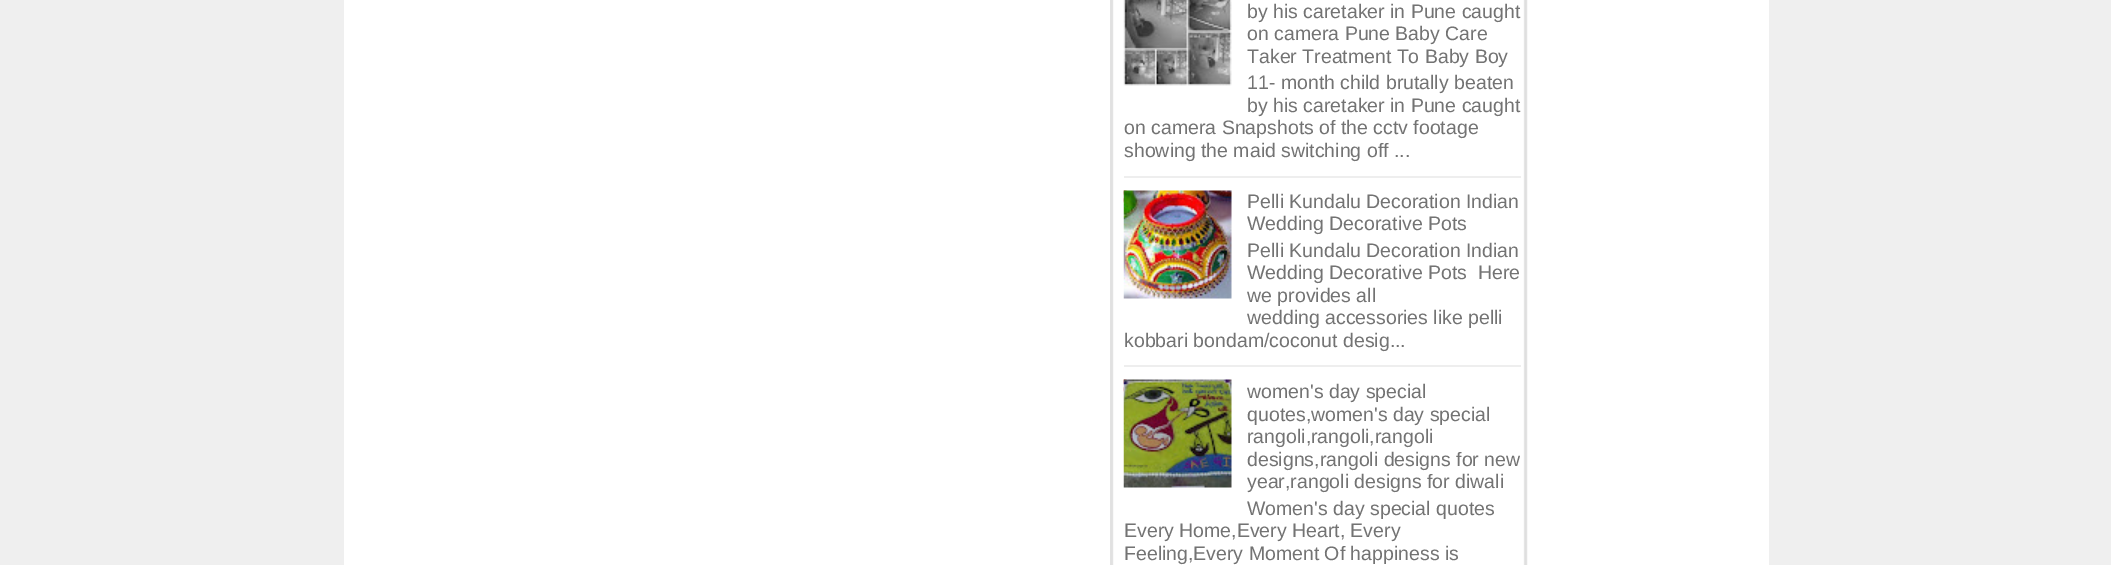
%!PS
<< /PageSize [2111 565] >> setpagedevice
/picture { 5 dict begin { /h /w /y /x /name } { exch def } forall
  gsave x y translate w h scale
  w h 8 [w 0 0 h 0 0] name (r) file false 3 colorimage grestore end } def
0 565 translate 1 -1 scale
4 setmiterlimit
0.937 setgray
0 0 2111 565 rectfill
1 setgray
344 0 1425 565 rectfill
(img1.rgb) 1110 0 418 565 picture
0.933 setgray
1124 176 397 2 rectfill
(img2.rgb) 1123 0 109 86 picture
/LiberationSans-Regular [19.5 0 0 -19.5 0 0] selectfont
0.451 setgray
1247 18 moveto (by his caretaker in Pune caught) show
1247 40 moveto (on camera Pune Baby Care) show
1247 63 moveto (Taker Treatment To Baby Boy) show
1247 89 moveto (11- month child brutally beaten) show
1247 112 moveto (by his caretaker in Pune caught) show
1124 134 moveto (on camera Snapshots of the cctv footage) show
1124 157 moveto (showing the maid switching off ...) show
(img3.rgb) 1123 190 8 13 picture
0.933 setgray
1124 365 397 2 rectfill
(img4.rgb) 1123 190 109 109 picture
0.451 setgray
1247 208 moveto (Pelli Kundalu Decoration Indian) show
1247 230 moveto (Wedding Decorative Pots) show
1247 257 moveto (Pelli Kundalu Decoration Indian) show
1247 279 moveto (Wedding Decorative Pots  Here) show
1247 302 moveto (we provides all) show
1247 324 moveto (wedding accessories like pelli) show
1124 347 moveto (kobbari bondam/coconut desig...) show
(img3.rgb) 1123 379 8 13 picture
(img5.rgb) 1123 379 109 109 picture
1247 398 moveto (women's day special) show
1247 421 moveto (quotes,women's day special) show
1247 443 moveto (rangoli,rangoli,rangoli) show
1247 466 moveto (designs,rangoli designs for new) show
1247 488 moveto (year,rangoli designs for diwali) show
1247 515 moveto (Women's day special quotes) show
1124 537 moveto (Every Home,Every Heart, Every) show
1124 560 moveto (Feeling,Every Moment Of happiness is) show
showpage
